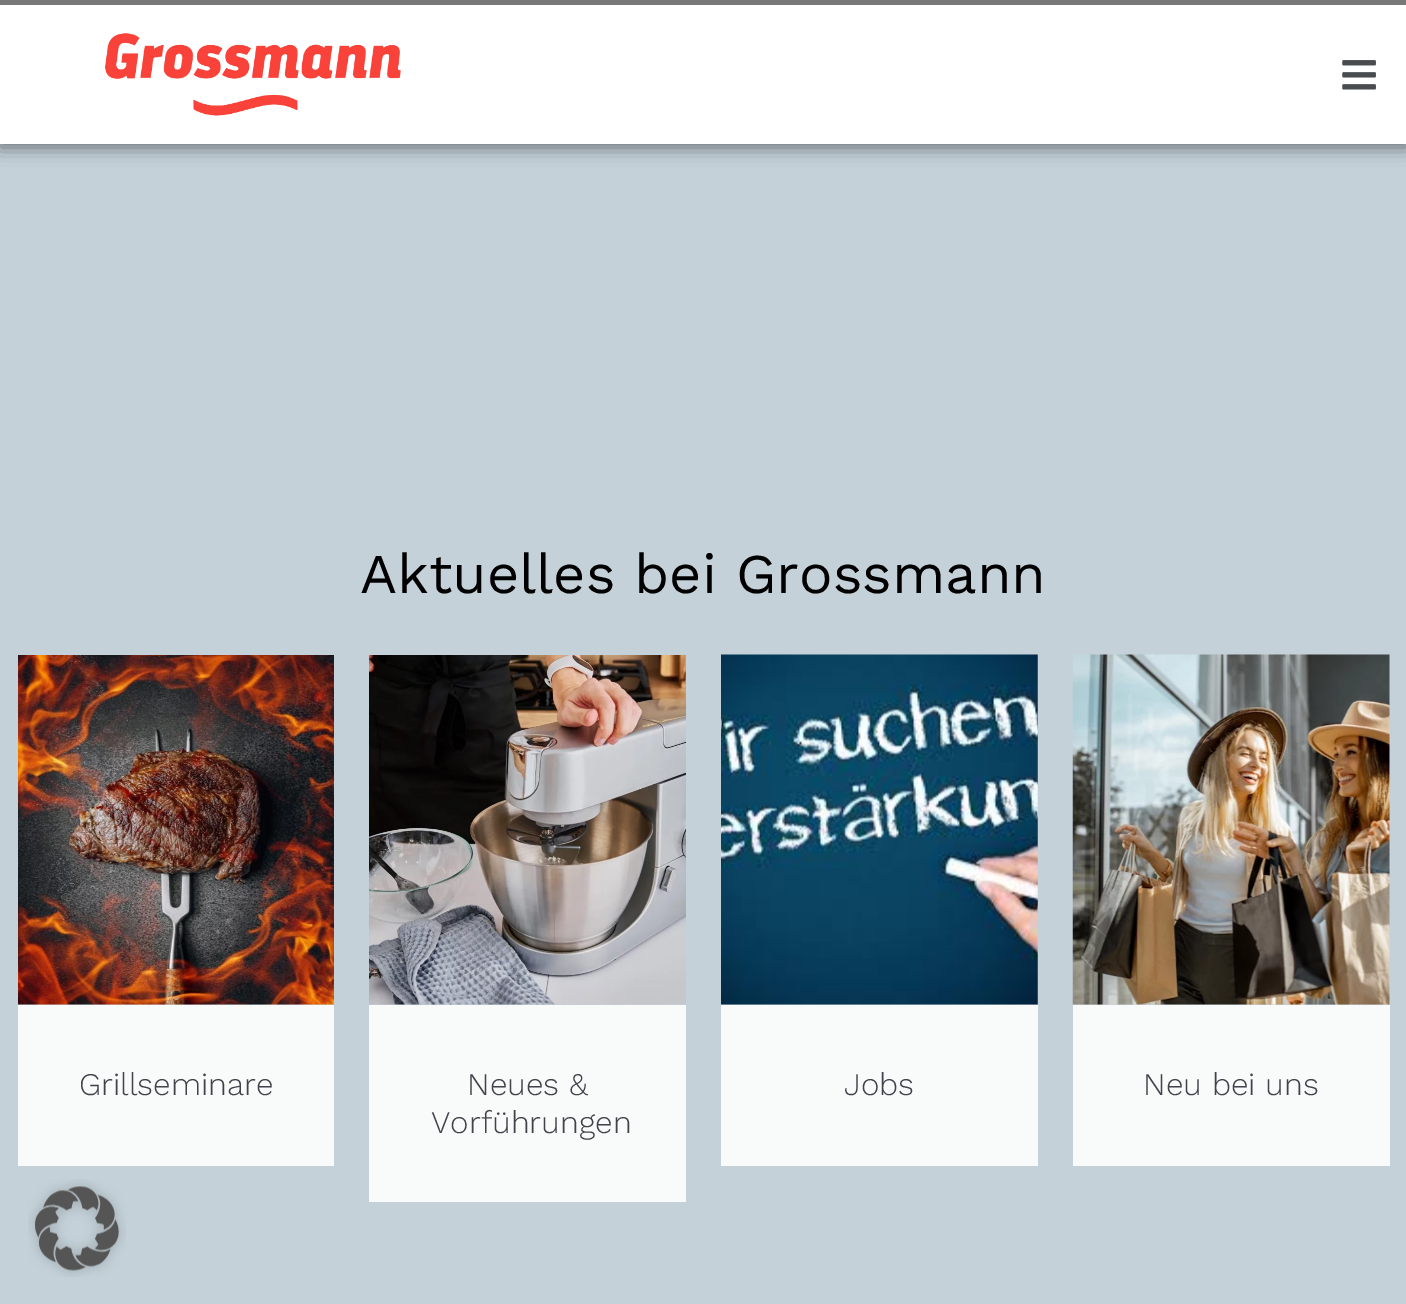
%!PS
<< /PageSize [1406 1304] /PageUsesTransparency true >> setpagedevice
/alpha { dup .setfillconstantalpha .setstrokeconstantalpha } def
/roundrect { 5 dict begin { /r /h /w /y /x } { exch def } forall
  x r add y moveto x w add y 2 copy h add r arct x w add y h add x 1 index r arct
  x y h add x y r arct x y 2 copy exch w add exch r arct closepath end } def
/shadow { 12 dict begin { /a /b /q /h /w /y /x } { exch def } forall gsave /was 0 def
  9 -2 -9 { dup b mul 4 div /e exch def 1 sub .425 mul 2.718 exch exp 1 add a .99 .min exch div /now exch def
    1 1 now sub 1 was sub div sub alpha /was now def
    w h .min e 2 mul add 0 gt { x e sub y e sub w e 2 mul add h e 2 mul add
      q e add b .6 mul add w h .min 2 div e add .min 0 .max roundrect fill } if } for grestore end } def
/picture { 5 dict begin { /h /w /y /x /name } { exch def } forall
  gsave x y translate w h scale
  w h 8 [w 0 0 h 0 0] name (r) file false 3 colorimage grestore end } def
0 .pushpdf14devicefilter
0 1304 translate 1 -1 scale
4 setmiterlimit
0.769 0.82 0.847 setrgbcolor
0 0 1406 1304 rectfill
0 setgray
0 4 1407 143 0 9 0.5 shadow
1 setgray
0 5 1406 139 rectfill
0.471 setgray
0 0 1406 5 rectfill
(img1.rgb) 104 33 297 83 picture
(img2.rgb) 1342 60 34 30 picture
/WorkSans-Regular [56 0 0 -56 0 0] selectfont
0 setgray
360 593 moveto (Aktuelles bei Grossmann) show
(img3.rgb) 18 655 316 350 picture
0.976 0.98 0.98 setrgbcolor
18 1005 316 161 rectfill
/WorkSans-Light [31.5 0 0 -31.5 0 0] selectfont
0.247 0.267 0.294 setrgbcolor
79 1095 moveto (Grillseminare) show
(img4.rgb) 369 655 317 350 picture
0.976 0.98 0.98 setrgbcolor
369 1005 317 197 rectfill
0.247 0.267 0.294 setrgbcolor
467 1095 moveto (Neues &) show
431 1133 moveto (Vorführungen) show
(img5.rgb) 721 654 317 351 picture
0.976 0.98 0.98 setrgbcolor
721 1005 317 161 rectfill
0.247 0.267 0.294 setrgbcolor
844 1095 moveto (Jobs) show
(img6.rgb) 1072 654 318 351 picture
0.976 0.98 0.98 setrgbcolor
1073 1005 317 161 rectfill
0.247 0.267 0.294 setrgbcolor
1143 1095 moveto (Neu bei uns) show
(img7.rgb) 28 1179 98 98 picture
.poppdf14devicefilter showpage
